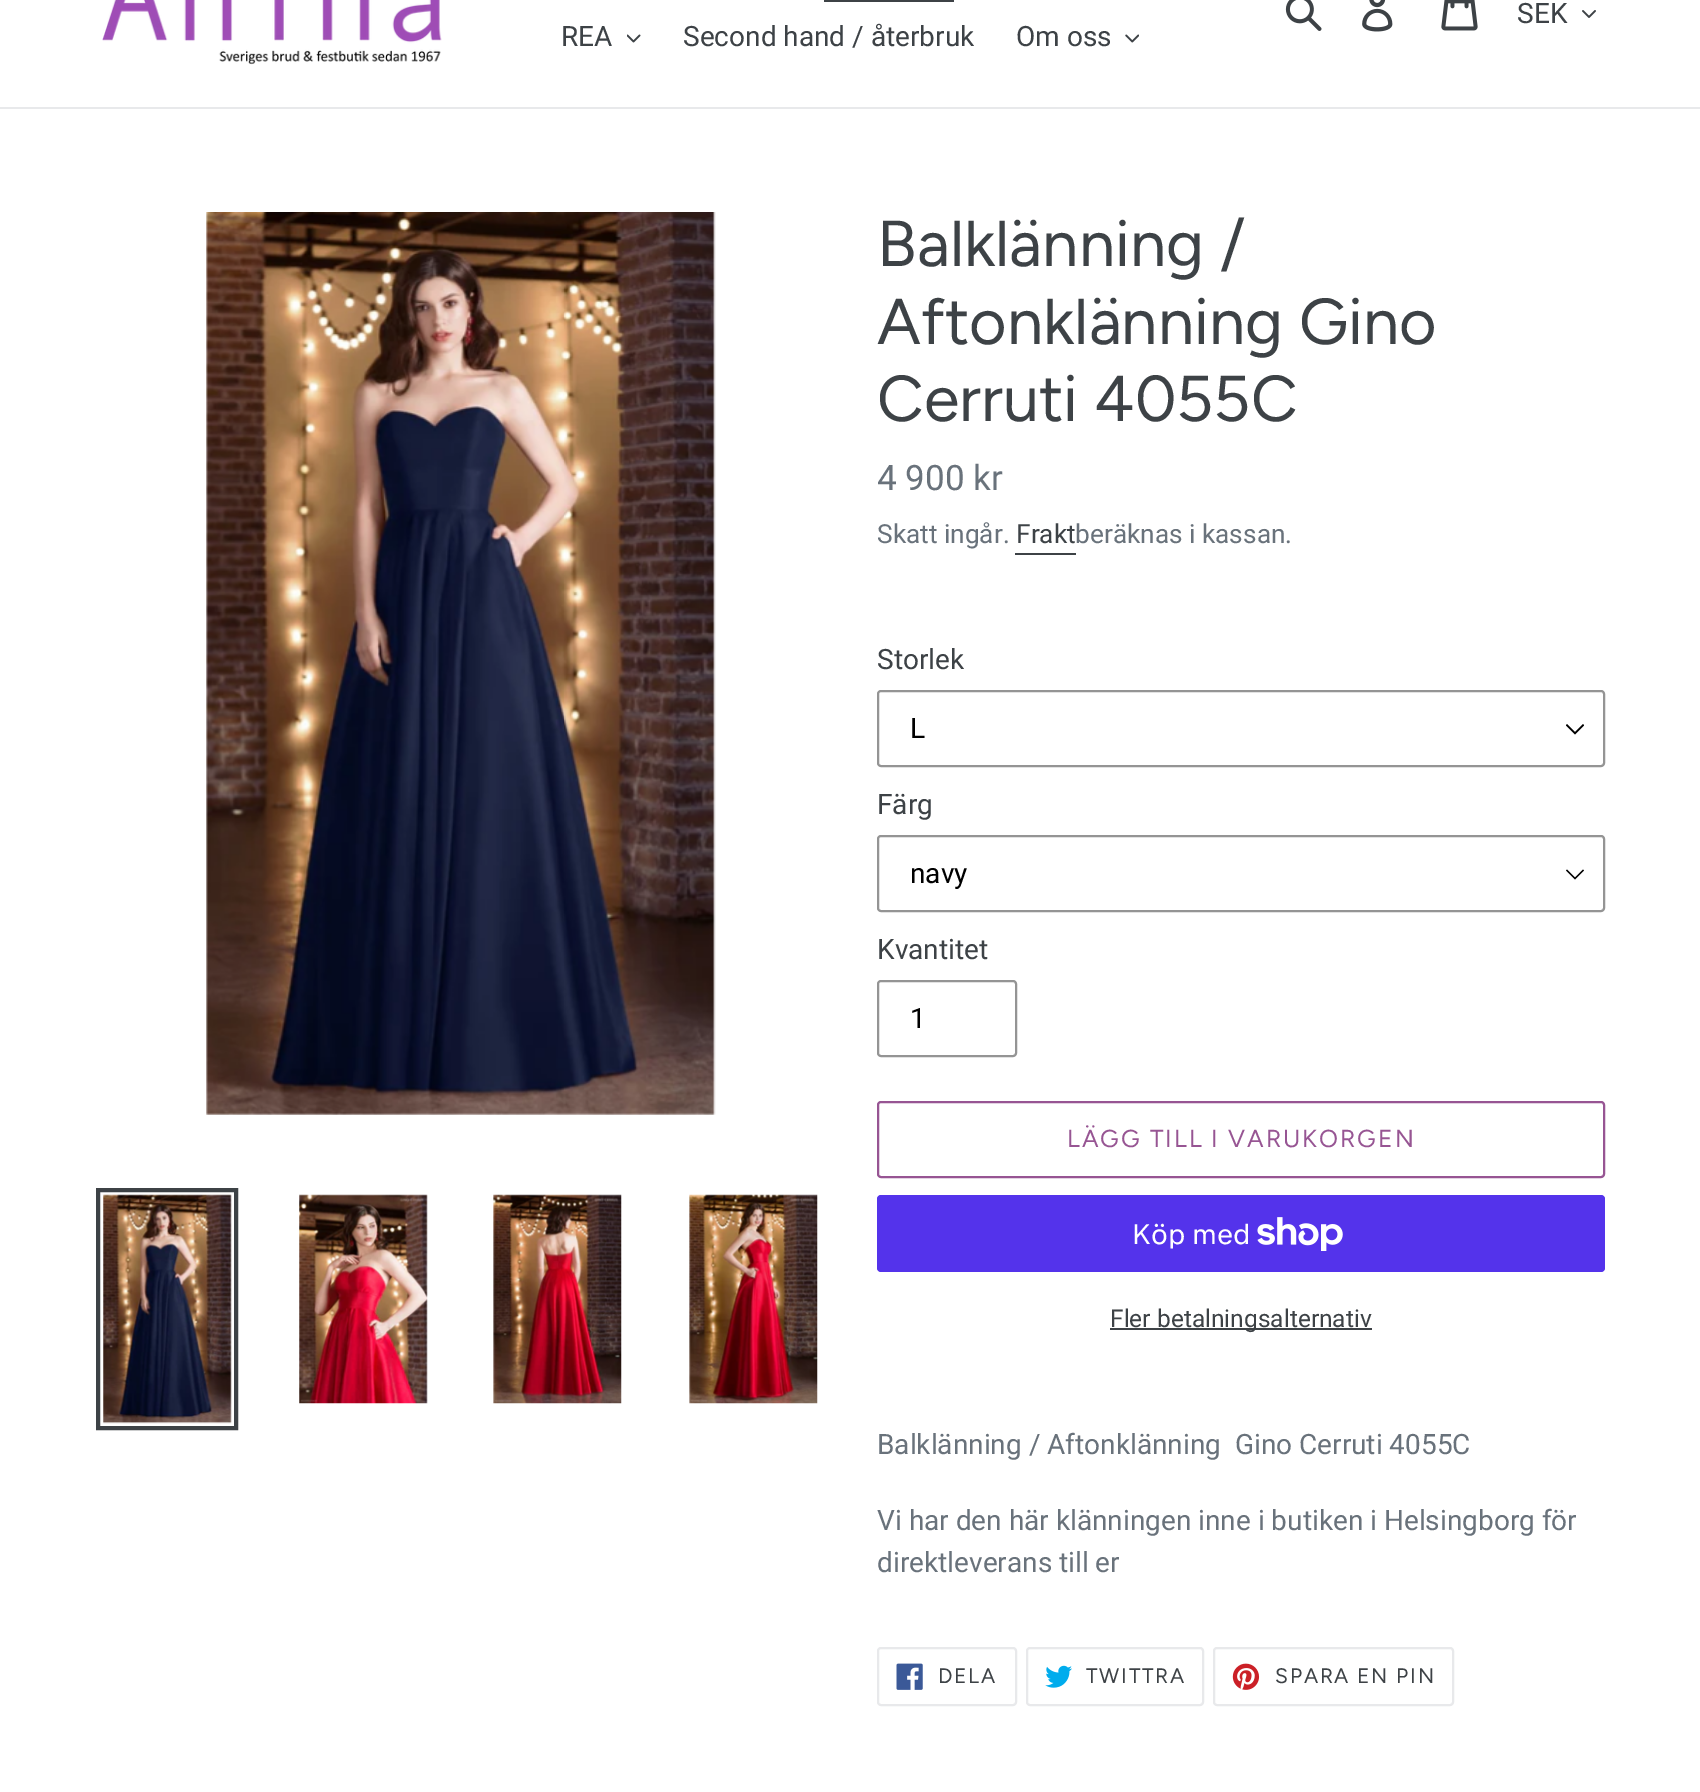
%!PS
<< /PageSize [1700 1792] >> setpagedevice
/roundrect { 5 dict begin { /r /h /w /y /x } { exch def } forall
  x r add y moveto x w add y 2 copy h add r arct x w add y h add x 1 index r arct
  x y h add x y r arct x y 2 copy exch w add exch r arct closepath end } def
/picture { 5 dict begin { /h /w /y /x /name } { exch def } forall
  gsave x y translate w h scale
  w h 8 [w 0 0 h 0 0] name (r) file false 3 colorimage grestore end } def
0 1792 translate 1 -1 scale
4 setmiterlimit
1 setgray
0 0 1700 1792 rectfill
0.91 0.914 0.922 setrgbcolor
0 107 1700 2 rectfill
(img1.rgb) 102 0 340 65 picture
(img2.rgb) 1285 0 37 31 picture
(img3.rgb) 1362 0 31 32 picture
(img4.rgb) 1441 0 37 31 picture
/Roboto-Regular [28 0 0 -28 0 0] selectfont
0.239 0.259 0.275 setrgbcolor
1517 23 moveto (SEK) show
(img5.rgb) 1582 10 14 8 picture
824 0 130 2 rectfill
561 46 moveto (REA) show
(img6.rgb) 627 34 14 9 picture
683 46 moveto (Second hand / återbruk) show
1016 46 moveto (Om oss) show
(img7.rgb) 1125 34 14 9 picture
(img8.rgb) 206 212 510 903 picture
4 setlinewidth
98 1190 138 238 rectstroke
(img9.rgb) 103 1194 129 230 picture
(img10.rgb) 299 1194 129 210 picture
(img11.rgb) 493 1194 129 210 picture
(img12.rgb) 689 1194 129 210 picture
/Figtree-Regular [64.75 0 0 -64.75 0 0] selectfont
877 266 moveto (Balklänning /) show
877 344 moveto (Aftonklänning Gino) show
877 421 moveto (Cerruti 4055C) show
/Roboto-Regular [35 0 0 -35 0 0] selectfont
0.412 0.447 0.482 setrgbcolor
877 490 moveto (4 900 kr) show
/Roboto-Regular [26.25 0 0 -26.25 0 0] selectfont
877 543 moveto (Skatt ingår.) show
0.239 0.259 0.275 setrgbcolor
1016 543 moveto (Frakt) show
1015 553 61 2 rectfill
0.412 0.447 0.482 setrgbcolor
1075 543 moveto (beräknas i kassan.) show
/Roboto-Regular [28 0 0 -28 0 0] selectfont
0.239 0.259 0.275 setrgbcolor
877 669 moveto (Storlek) show
0 setgray
newpath 1575 734.5 moveto 1566 725.5 lineto 1567 724 lineto 1575 732 lineto 1583 724 lineto 1584 725.5 lineto closepath fill
0.58 setgray
2 setlinewidth
878 691 726 75 3 roundrect stroke
0 setgray
910 738 moveto (L) show
0.239 0.259 0.275 setrgbcolor
877 814 moveto (Färg) show
0 setgray
newpath 1575 879.5 moveto 1566 870.5 lineto 1567 869.5 lineto 1575 877.5 lineto 1583 869.5 lineto 1584 870.5 lineto closepath fill
0.58 setgray
878 836 726 75 3 roundrect stroke
0 setgray
910 883 moveto (navy) show
0.239 0.259 0.275 setrgbcolor
877 959 moveto (Kvantitet) show
0.58 setgray
878 981 138 75 3 roundrect stroke
0 setgray
910 1028 moveto (1) show
0.592 0.333 0.576 setrgbcolor
878 1102 726 75 3 roundrect stroke
/Figtree-Regular [24.5 0 0 -24.5 0 0] selectfont
1067 1147 moveto 2 0 (LÄGG TILL I VARUKORGEN) ashow
0.329 0.2 0.922 setrgbcolor
877 1195 728 77 4 roundrect fill
/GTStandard-Regular [28 0 0 -28 0 0] selectfont
1 setgray
1132 1244 moveto (Köp med) show
(img13.rgb) 1257 1217 86 34 picture
0.239 0.259 0.275 setrgbcolor
1110 1328 262 2 rectfill
/Roboto-Regular [24.5 0 0 -24.5 0 0] selectfont
1110 1327 moveto (Fler betalningsalternativ) show
/Roboto-Regular [28 0 0 -28 0 0] selectfont
0.412 0.447 0.482 setrgbcolor
877 1454 moveto (Balklänning / Aftonklänning  Gino Cerruti 4055C) show
877 1530 moveto (Vi har den här klänningen inne i butiken i Helsingborg för) show
877 1572 moveto (direktleverans till er) show
0.91 0.914 0.922 setrgbcolor
878 1648 138 57 3 roundrect stroke
(img14.rgb) 896 1663 27 27 picture
/Figtree-Regular [21 0 0 -21 0 0] selectfont
0.239 0.259 0.275 setrgbcolor
938 1683 moveto 1.75 0 (DELA) ashow
0.91 0.914 0.922 setrgbcolor
1027 1648 176 57 3 roundrect stroke
(img15.rgb) 1045 1665 27 23 picture
0.239 0.259 0.275 setrgbcolor
1086 1683 moveto 1.75 0 (TWITTRA) ashow
0.91 0.914 0.922 setrgbcolor
1214 1648 239 57 3 roundrect stroke
(img16.rgb) 1232 1663 28 27 picture
0.239 0.259 0.275 setrgbcolor
1275 1683 moveto 1.75 0 (SPARA EN PIN) ashow
showpage
